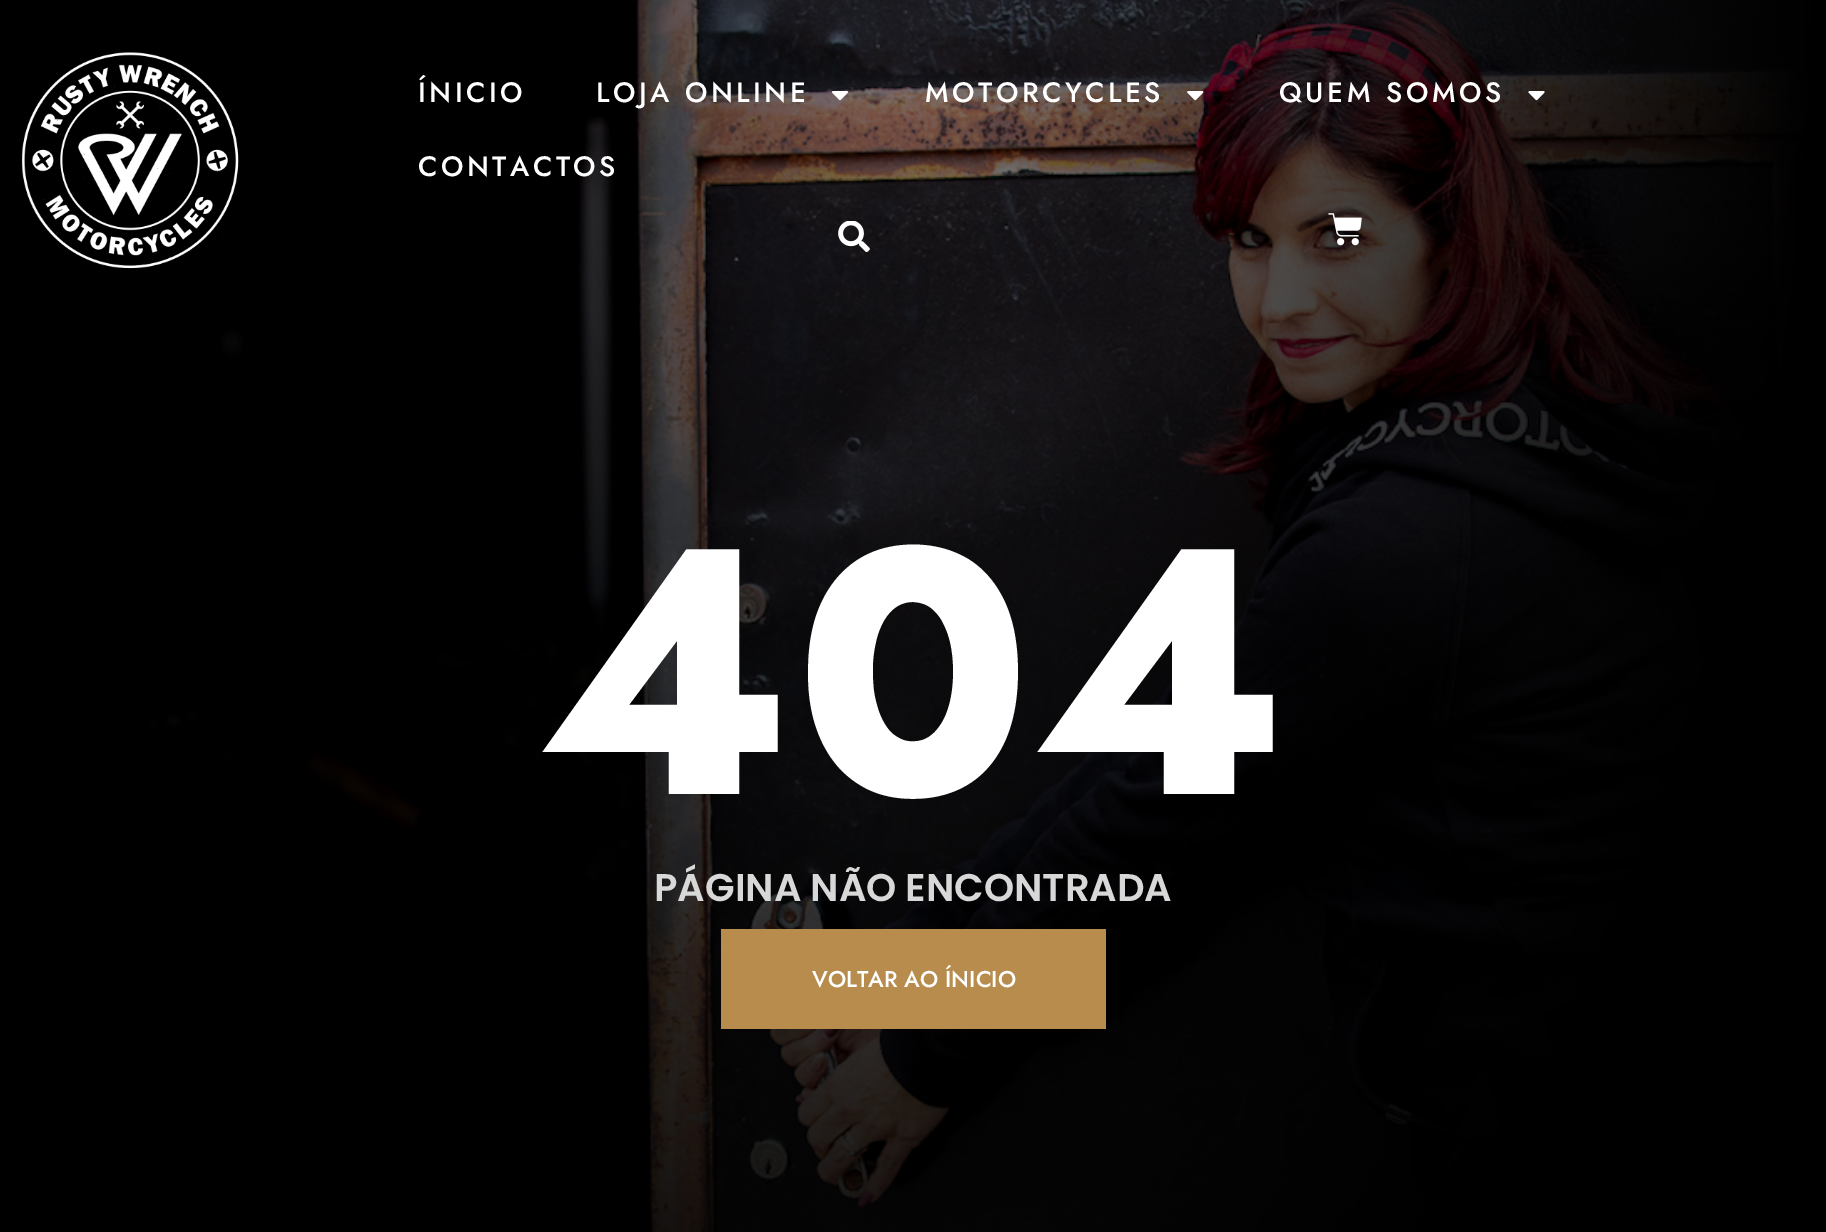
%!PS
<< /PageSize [1826 1232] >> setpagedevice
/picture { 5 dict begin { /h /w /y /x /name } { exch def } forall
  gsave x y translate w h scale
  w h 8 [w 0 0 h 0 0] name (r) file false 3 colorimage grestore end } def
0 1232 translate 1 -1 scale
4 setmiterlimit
1 setgray
0 0 1826 1232 rectfill
(img7.rgb) 0 0 1826 1232 picture
(img1.rgb) 21 52 224 217 picture
/Jost-Medium [28 0 0 -28 0 0] selectfont
418 102 moveto 3.5 0 (ÍNICIO) ashow
596 102 moveto 3.5 0 (LOJA ONLINE) ashow
(img2.rgb) 831 91 18 10 picture
925 102 moveto 3.5 0 (MOTORCYCLES) ashow
(img3.rgb) 1187 91 17 10 picture
1279 102 moveto 3.5 0 (QUEM SOMOS) ashow
(img4.rgb) 1528 91 17 10 picture
418 176 moveto 3.5 0 (CONTACTOS) ashow
(img5.rgb) 838 221 32 31 picture
(img6.rgb) 1328 213 34 33 picture
/Jost-ExtraBold [350 0 0 -350 0 0] selectfont
538 794 moveto (404) show
/Poppins-SemiBold [38.5 0 0 -38.5 0 0] selectfont
0.847 setgray
654 901 moveto (PÁGINA NÃO ENCONTRADA) show
0.722 0.549 0.302 setrgbcolor
721 929 385 100 rectfill
/Jost-Medium [22.75 0 0 -22.75 0 0] selectfont
1 setgray
812 987 moveto (VOLTAR AO ÍNICIO) show
showpage
